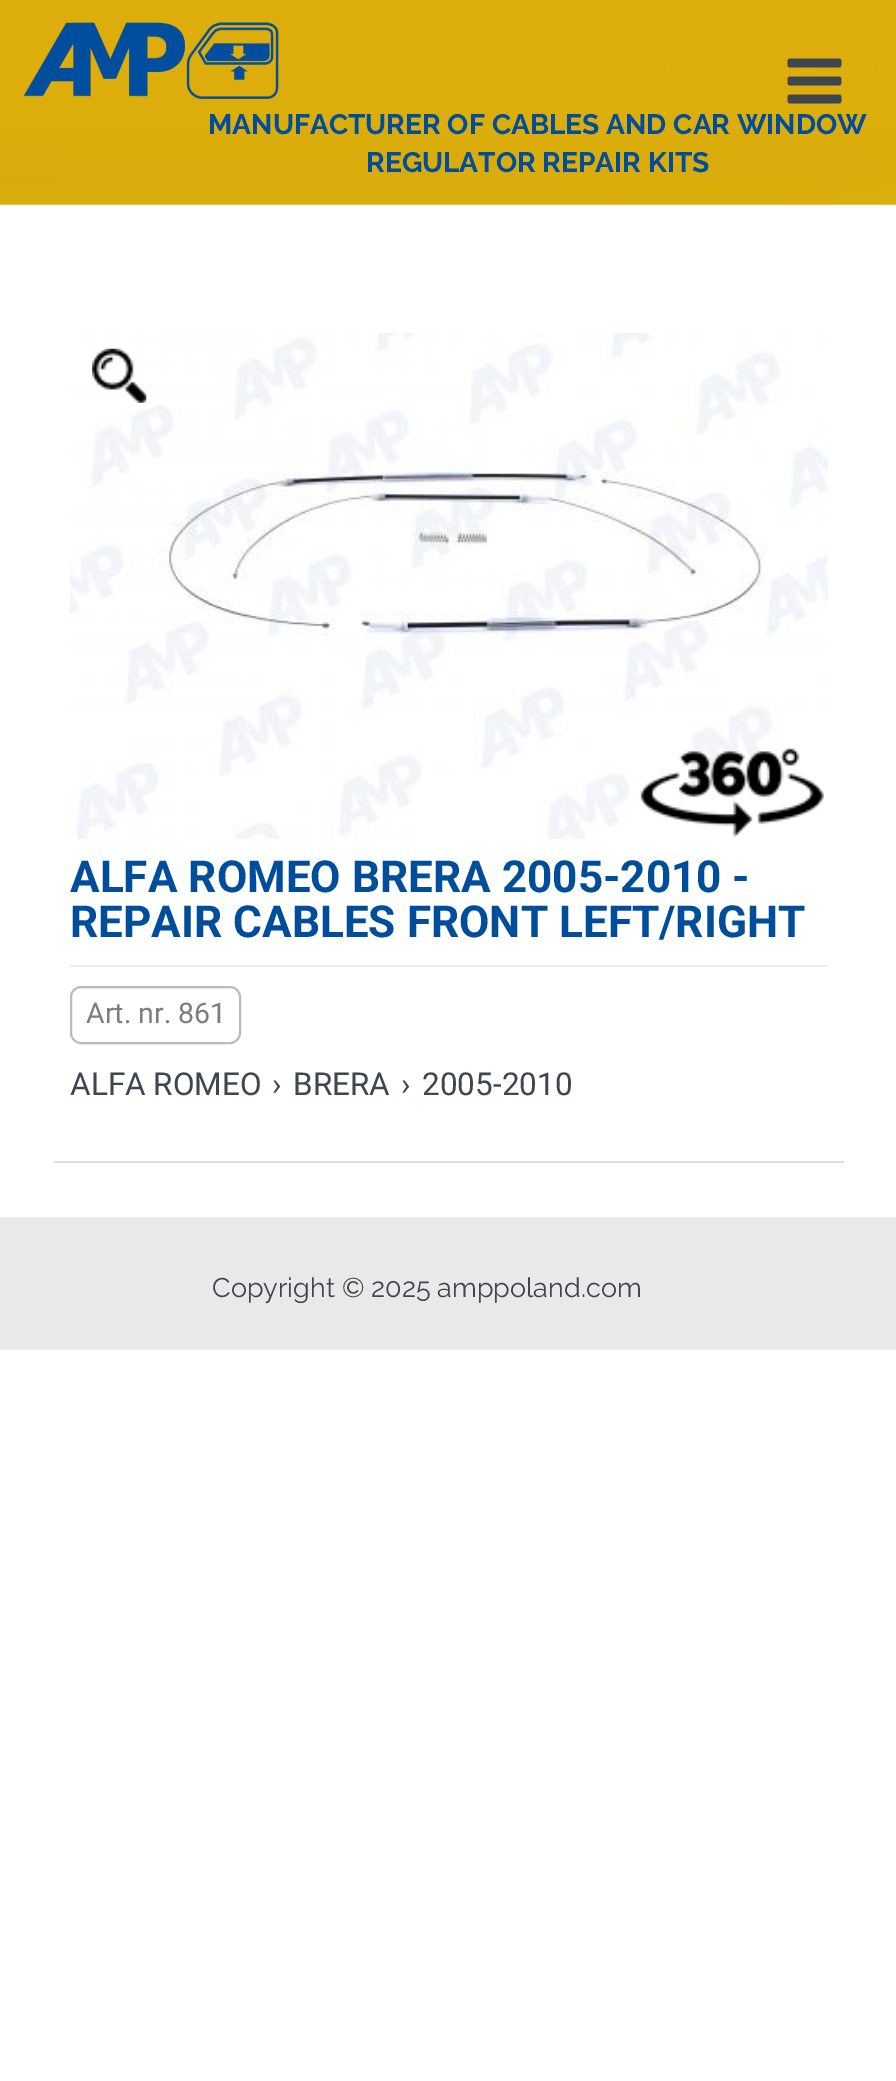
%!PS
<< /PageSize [896 2081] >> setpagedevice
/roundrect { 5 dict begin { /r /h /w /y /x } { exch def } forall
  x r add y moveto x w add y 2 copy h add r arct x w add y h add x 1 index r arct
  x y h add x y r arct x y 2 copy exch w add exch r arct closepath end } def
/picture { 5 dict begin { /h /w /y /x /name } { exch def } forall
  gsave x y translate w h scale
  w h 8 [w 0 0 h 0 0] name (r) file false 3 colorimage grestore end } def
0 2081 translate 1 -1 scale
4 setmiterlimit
1 setgray
0 0 896 2081 rectfill
(img1.rgb) 0 0 896 205 picture
(img2.rgb) 787 58 55 46 picture
(img3.rgb) 24 22 255 77 picture
/Raleway-Bold [28.1 0 0 -28.1 0 0] selectfont
0 0.302 0.612 setrgbcolor
208 134 moveto (MANUFACTURER OF CABLES AND CAR WINDOW) show
366 172 moveto (REGULATOR REPAIR KITS) show
0.867 setgray
54 1161 790 2 rectfill
(img4.rgb) 70 333 758 506 picture
(img5.rgb) 92 348 55 55 picture
(img6.rgb) 639 747 185 90 picture
0.933 setgray
70 965 758 2 rectfill
/Roboto-Bold [44.1 0 0 -44.1 0 0] selectfont
0 0.302 0.612 setrgbcolor
70 892 moveto (ALFA ROMEO BRERA 2005-2010 -) show
70 937 moveto (REPAIR CABLES FRONT LEFT/RIGHT) show
0.737 0.733 0.733 setrgbcolor
2 setlinewidth
71 987 169 56 10 roundrect stroke
/Roboto-Regular [28.5 0 0 -28.5 0 0] selectfont
0.49 setgray
86 1023 moveto (Art. nr. 861) show
/Roboto-Regular [31.5 0 0 -31.5 0 0] selectfont
0.247 0.275 0.31 setrgbcolor
70 1095 moveto (ALFA ROMEO) show
272 1095 moveto (›) show
293 1095 moveto (BRERA) show
401 1095 moveto (›) show
422 1095 moveto (2005-2010) show
0.914 setgray
0 1217 896 133 rectfill
/Raleway-Regular [27 0 0 -27 0 0] selectfont
0.247 0.275 0.31 setrgbcolor
212 1297 moveto (Copyright © 2025 amppoland.com) show
showpage
